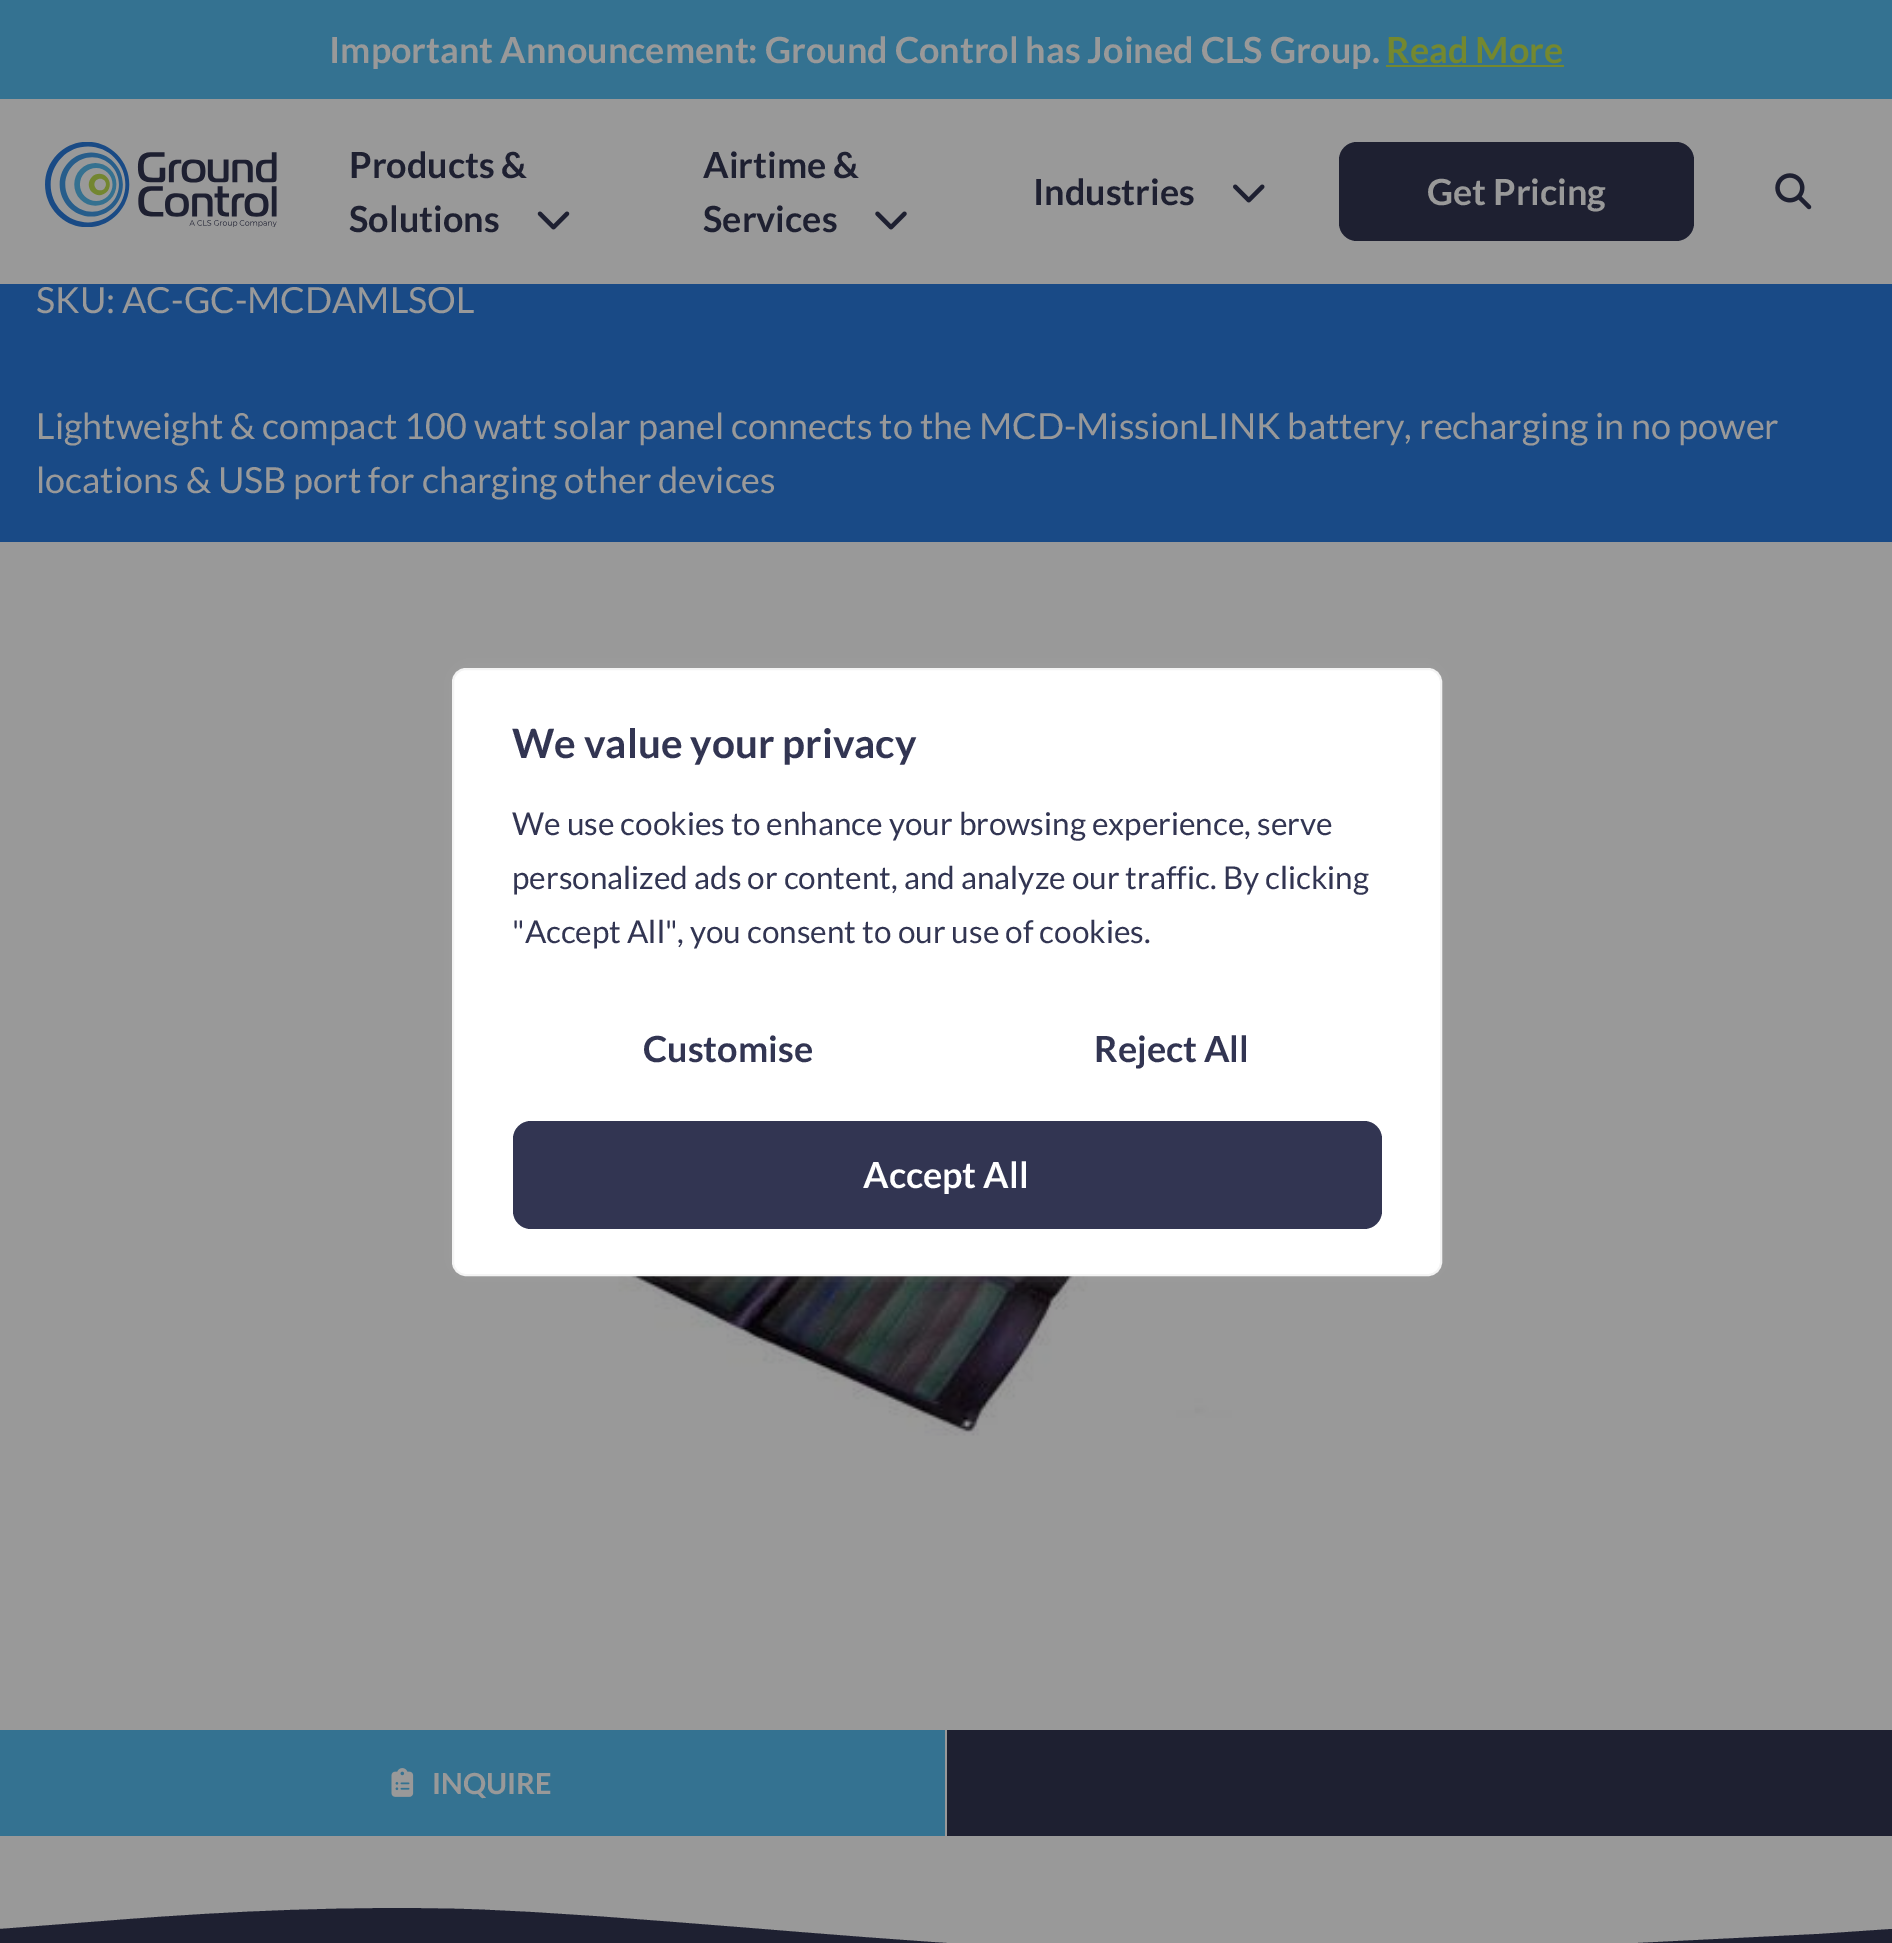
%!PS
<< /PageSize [1892 1943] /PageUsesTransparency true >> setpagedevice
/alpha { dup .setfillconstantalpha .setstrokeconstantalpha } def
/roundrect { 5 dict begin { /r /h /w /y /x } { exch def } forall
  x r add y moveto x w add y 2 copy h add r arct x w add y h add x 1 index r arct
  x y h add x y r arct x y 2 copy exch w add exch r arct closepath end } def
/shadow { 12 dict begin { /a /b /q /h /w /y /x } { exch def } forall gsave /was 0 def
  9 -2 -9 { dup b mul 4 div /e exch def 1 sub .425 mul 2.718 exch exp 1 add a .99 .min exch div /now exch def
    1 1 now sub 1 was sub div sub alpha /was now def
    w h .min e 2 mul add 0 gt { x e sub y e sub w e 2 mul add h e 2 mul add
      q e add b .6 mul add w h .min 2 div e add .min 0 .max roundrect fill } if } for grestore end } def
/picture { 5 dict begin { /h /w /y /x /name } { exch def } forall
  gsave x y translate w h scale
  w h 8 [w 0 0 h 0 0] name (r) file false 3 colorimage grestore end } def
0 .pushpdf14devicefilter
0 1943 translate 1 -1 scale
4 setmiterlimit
0.6 setgray
0 0 1892 1943 rectfill
0.204 0.447 0.569 setrgbcolor
0 0 1892 99 rectfill
/Lato-Bold [36 0 0 -36 0 0] selectfont
0.6 setgray
329 63 moveto (Important Announcement: Ground Control has Joined CLS Group.) show
0.455 0.533 0.184 setrgbcolor
1386 63 moveto (Read More) show
1386 65 178 2 rectfill
(img1.rgb) 45 142 232 85 picture
0.118 0.125 0.192 setrgbcolor
349 178 moveto (Products &) show
349 232 moveto (Solutions) show
(img2.rgb) 537 211 33 19 picture
703 178 moveto (Airtime &) show
703 232 moveto (Services) show
(img3.rgb) 875 211 32 19 picture
1033 205 moveto (Industries) show
(img4.rgb) 1233 184 32 19 picture
1339 142 355 99 18 roundrect fill
0.6 setgray
1427 205 moveto (Get Pricing) show
(img5.rgb) 1775 173 37 37 picture
0.098 0.29 0.525 setrgbcolor
0 284 1892 258 rectfill
/Lato-Regular [36 0 0 -36 0 0] selectfont
0.6 setgray
36 313 moveto (SKU: AC-GC-MCDAMLSOL) show
36 439 moveto (Lightweight & compact 100 watt solar panel connects to the MCD-MissionLINK battery, recharging in no power) show
36 493 moveto (locations & USB port for charging other devices) show
(img6.rgb) 547 1276 792 160 picture
0.118 0.125 0.192 setrgbcolor
947 1730 945 106 rectfill
0.204 0.447 0.569 setrgbcolor
0 1730 945 106 rectfill
(img7.rgb) 391 1768 23 29 picture
/Lato-Bold [29 0 0 -29 0 0] selectfont
0.6 setgray
432 1794 moveto (INQUIRE) show
0.118 0.125 0.192 setrgbcolor
newpath 1892 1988 moveto 0 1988 lineto 0 1929 lineto 117 1920 lineto 232 1911 348 1906 464 1909 curveto 555 1912 646 1920 737 1927 curveto 823 1934 908 1941 994 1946 curveto 1209 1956 1424 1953 1638 1943 curveto 1819 1934 lineto 1892 1929 lineto closepath fill
0.675 0.671 0.671 setrgbcolor
452 666 990 608 14 11 0.3 shadow
1 setgray
453 669 988 606 13 roundrect gsave fill grestore
0.957 setgray
2 setlinewidth
stroke
/Lato-Bold [40.5 0 0 -40.5 0 0] selectfont
0.196 0.208 0.322 setrgbcolor
512 758 moveto (We value your privacy) show
/Lato-Regular [31.5 0 0 -31.5 0 0] selectfont
512 835 moveto (We use cookies to enhance your browsing experience, serve) show
512 889 moveto (personalized ads or content, and analyze our traffic. By clicking) show
512 943 moveto ("Accept All", you consent to our use of cookies.) show
/Lato-Bold [36 0 0 -36 0 0] selectfont
643 1062 moveto (Customise) show
1094 1062 moveto (Reject All) show
513 1121 869 108 18 roundrect fill
1 setgray
863 1188 moveto (Accept All) show
.poppdf14devicefilter showpage
